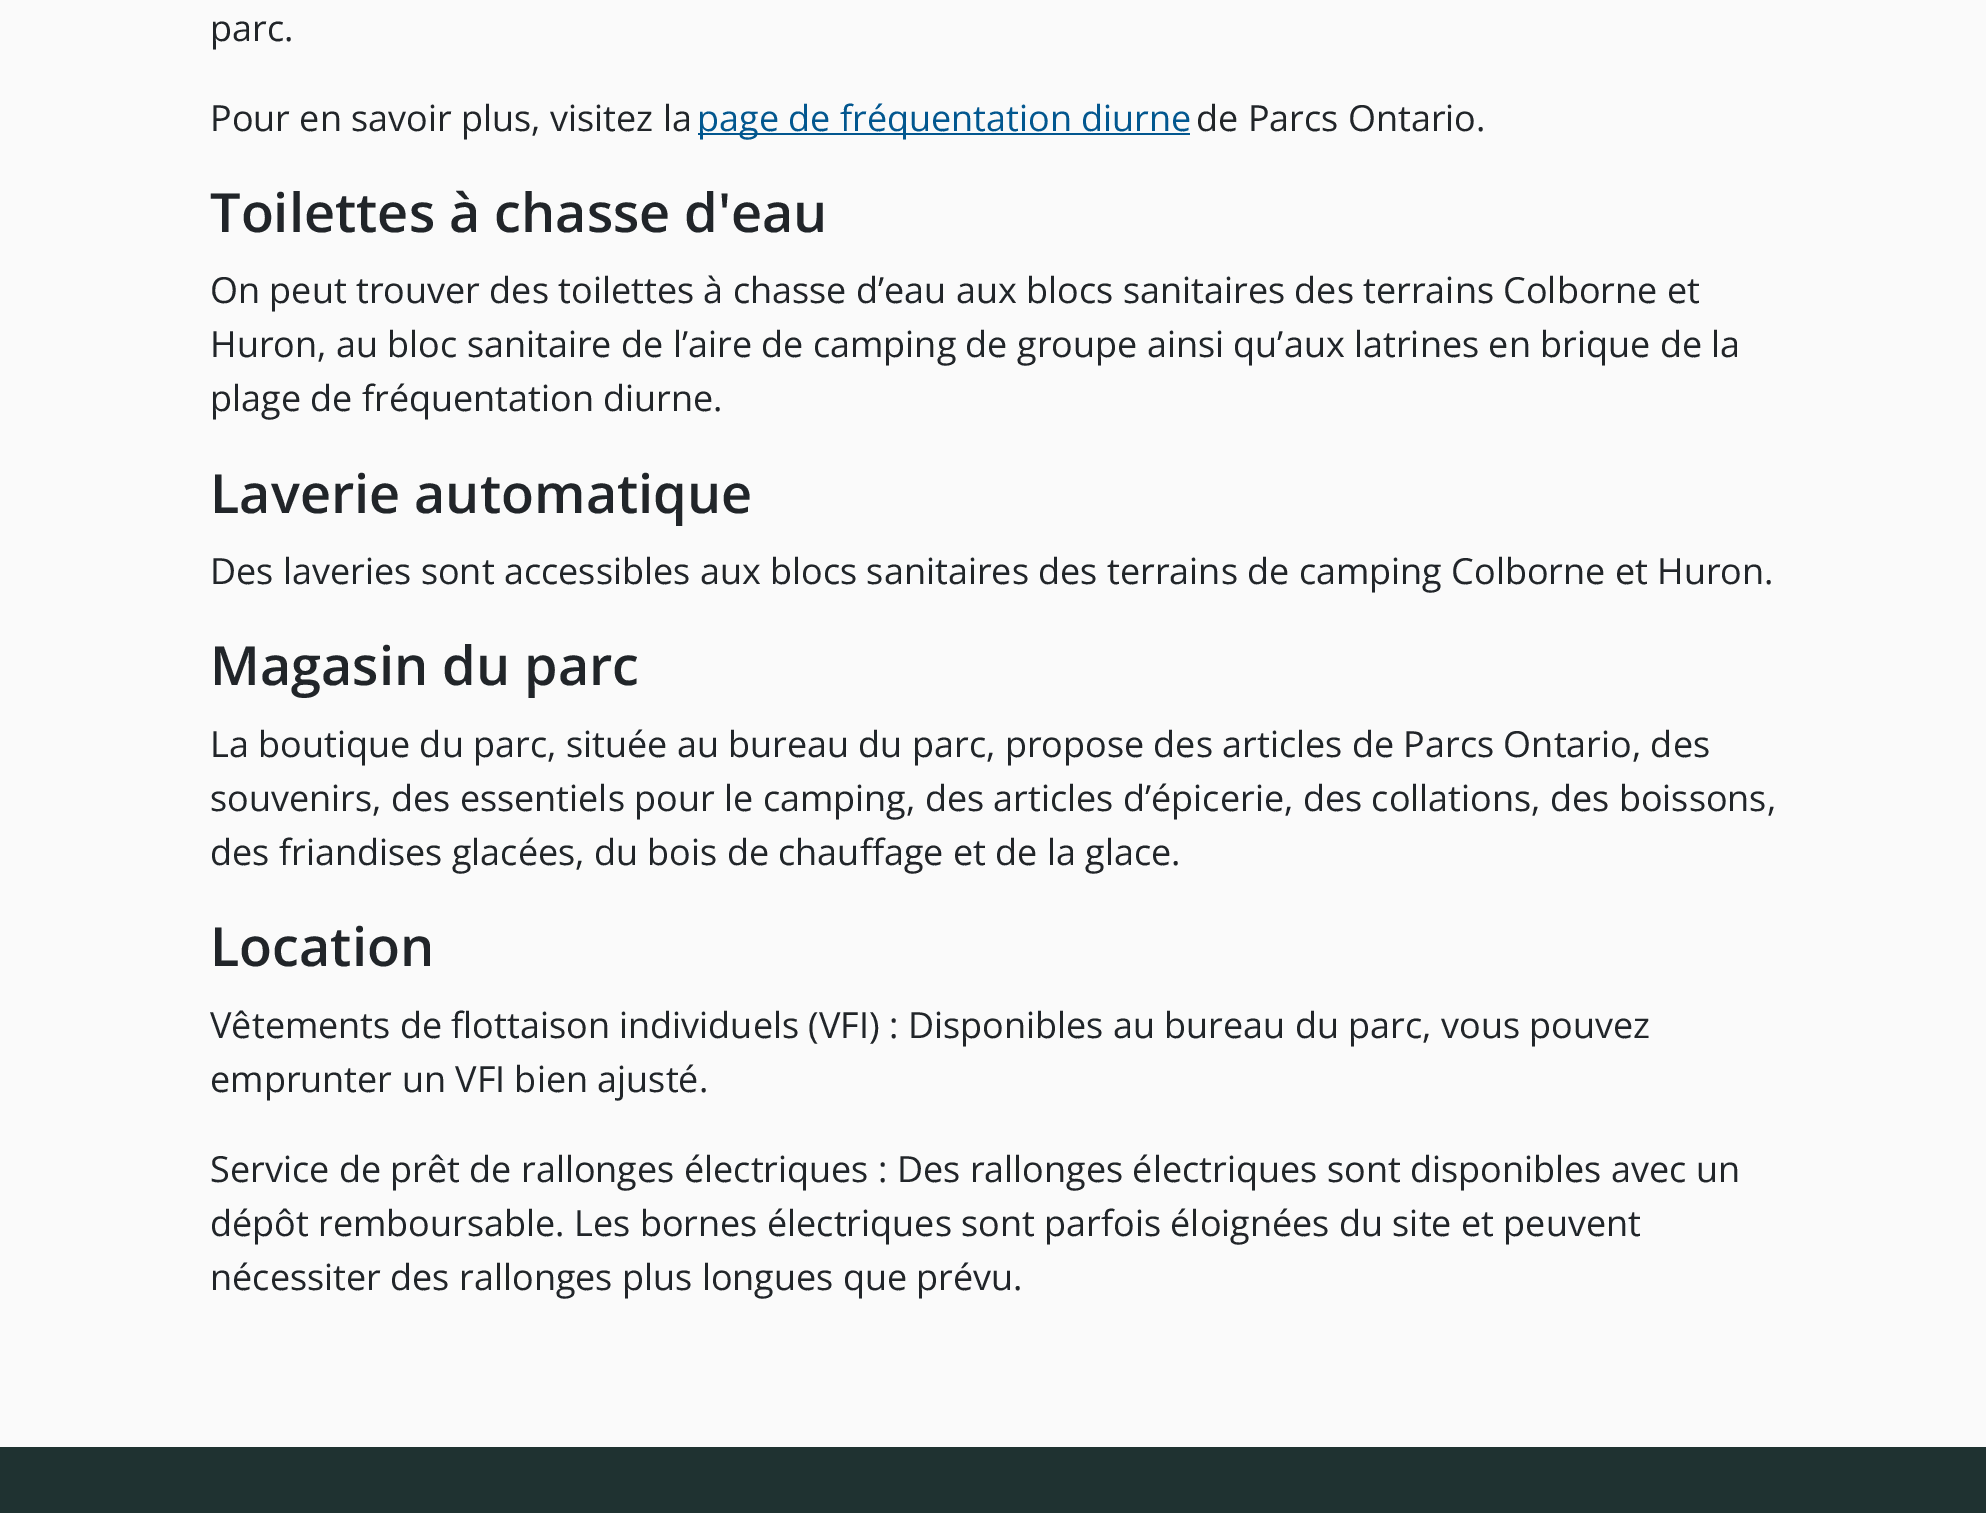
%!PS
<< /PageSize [1986 1513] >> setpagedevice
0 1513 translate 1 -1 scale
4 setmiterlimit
0.98 setgray
0 0 1986 1513 rectfill
/OpenSans-Regular [36 0 0 -36 0 0] selectfont
0.129 0.145 0.161 setrgbcolor
210 41 moveto (parc.) show
210 131 moveto (Pour en savoir plus, visitez la) show
0.008 0.341 0.561 setrgbcolor
698 133 492 2 rectfill
697 131 moveto (page de fréquentation diurne) show
0.129 0.145 0.161 setrgbcolor
1196 131 moveto (de Parcs Ontario.) show
/OpenSans-SemiBold [54 0 0 -54 0 0] selectfont
210 232 moveto (Toilettes à chasse d'eau) show
/OpenSans-Regular [36 0 0 -36 0 0] selectfont
210 303 moveto (On peut trouver des toilettes à chasse d’eau aux blocs sanitaires des terrains Colborne et) show
210 357 moveto (Huron, au bloc sanitaire de l’aire de camping de groupe ainsi qu’aux latrines en brique de la) show
210 411 moveto (plage de fréquentation diurne.) show
/OpenSans-SemiBold [54 0 0 -54 0 0] selectfont
210 513 moveto (Laverie automatique) show
/OpenSans-Regular [36 0 0 -36 0 0] selectfont
210 584 moveto (Des laveries sont accessibles aux blocs sanitaires des terrains de camping Colborne et Huron.) show
/OpenSans-SemiBold [54 0 0 -54 0 0] selectfont
210 685 moveto (Magasin du parc) show
/OpenSans-Regular [36 0 0 -36 0 0] selectfont
210 757 moveto (La boutique du parc, située au bureau du parc, propose des articles de Parcs Ontario, des) show
210 811 moveto (souvenirs, des essentiels pour le camping, des articles d’épicerie, des collations, des boissons,) show
210 865 moveto (des friandises glacées, du bois de chauffage et de la glace.) show
/OpenSans-SemiBold [54 0 0 -54 0 0] selectfont
210 966 moveto (Location) show
/OpenSans-Regular [36 0 0 -36 0 0] selectfont
210 1038 moveto (Vêtements de flottaison individuels \(VFI\) : Disponibles au bureau du parc, vous pouvez) show
210 1092 moveto (emprunter un VFI bien ajusté.) show
210 1182 moveto (Service de prêt de rallonges électriques : Des rallonges électriques sont disponibles avec un) show
210 1236 moveto (dépôt remboursable. Les bornes électriques sont parfois éloignées du site et peuvent) show
210 1290 moveto (nécessiter des rallonges plus longues que prévu.) show
0.122 0.196 0.192 setrgbcolor
0 1447 1986 66 rectfill
showpage
